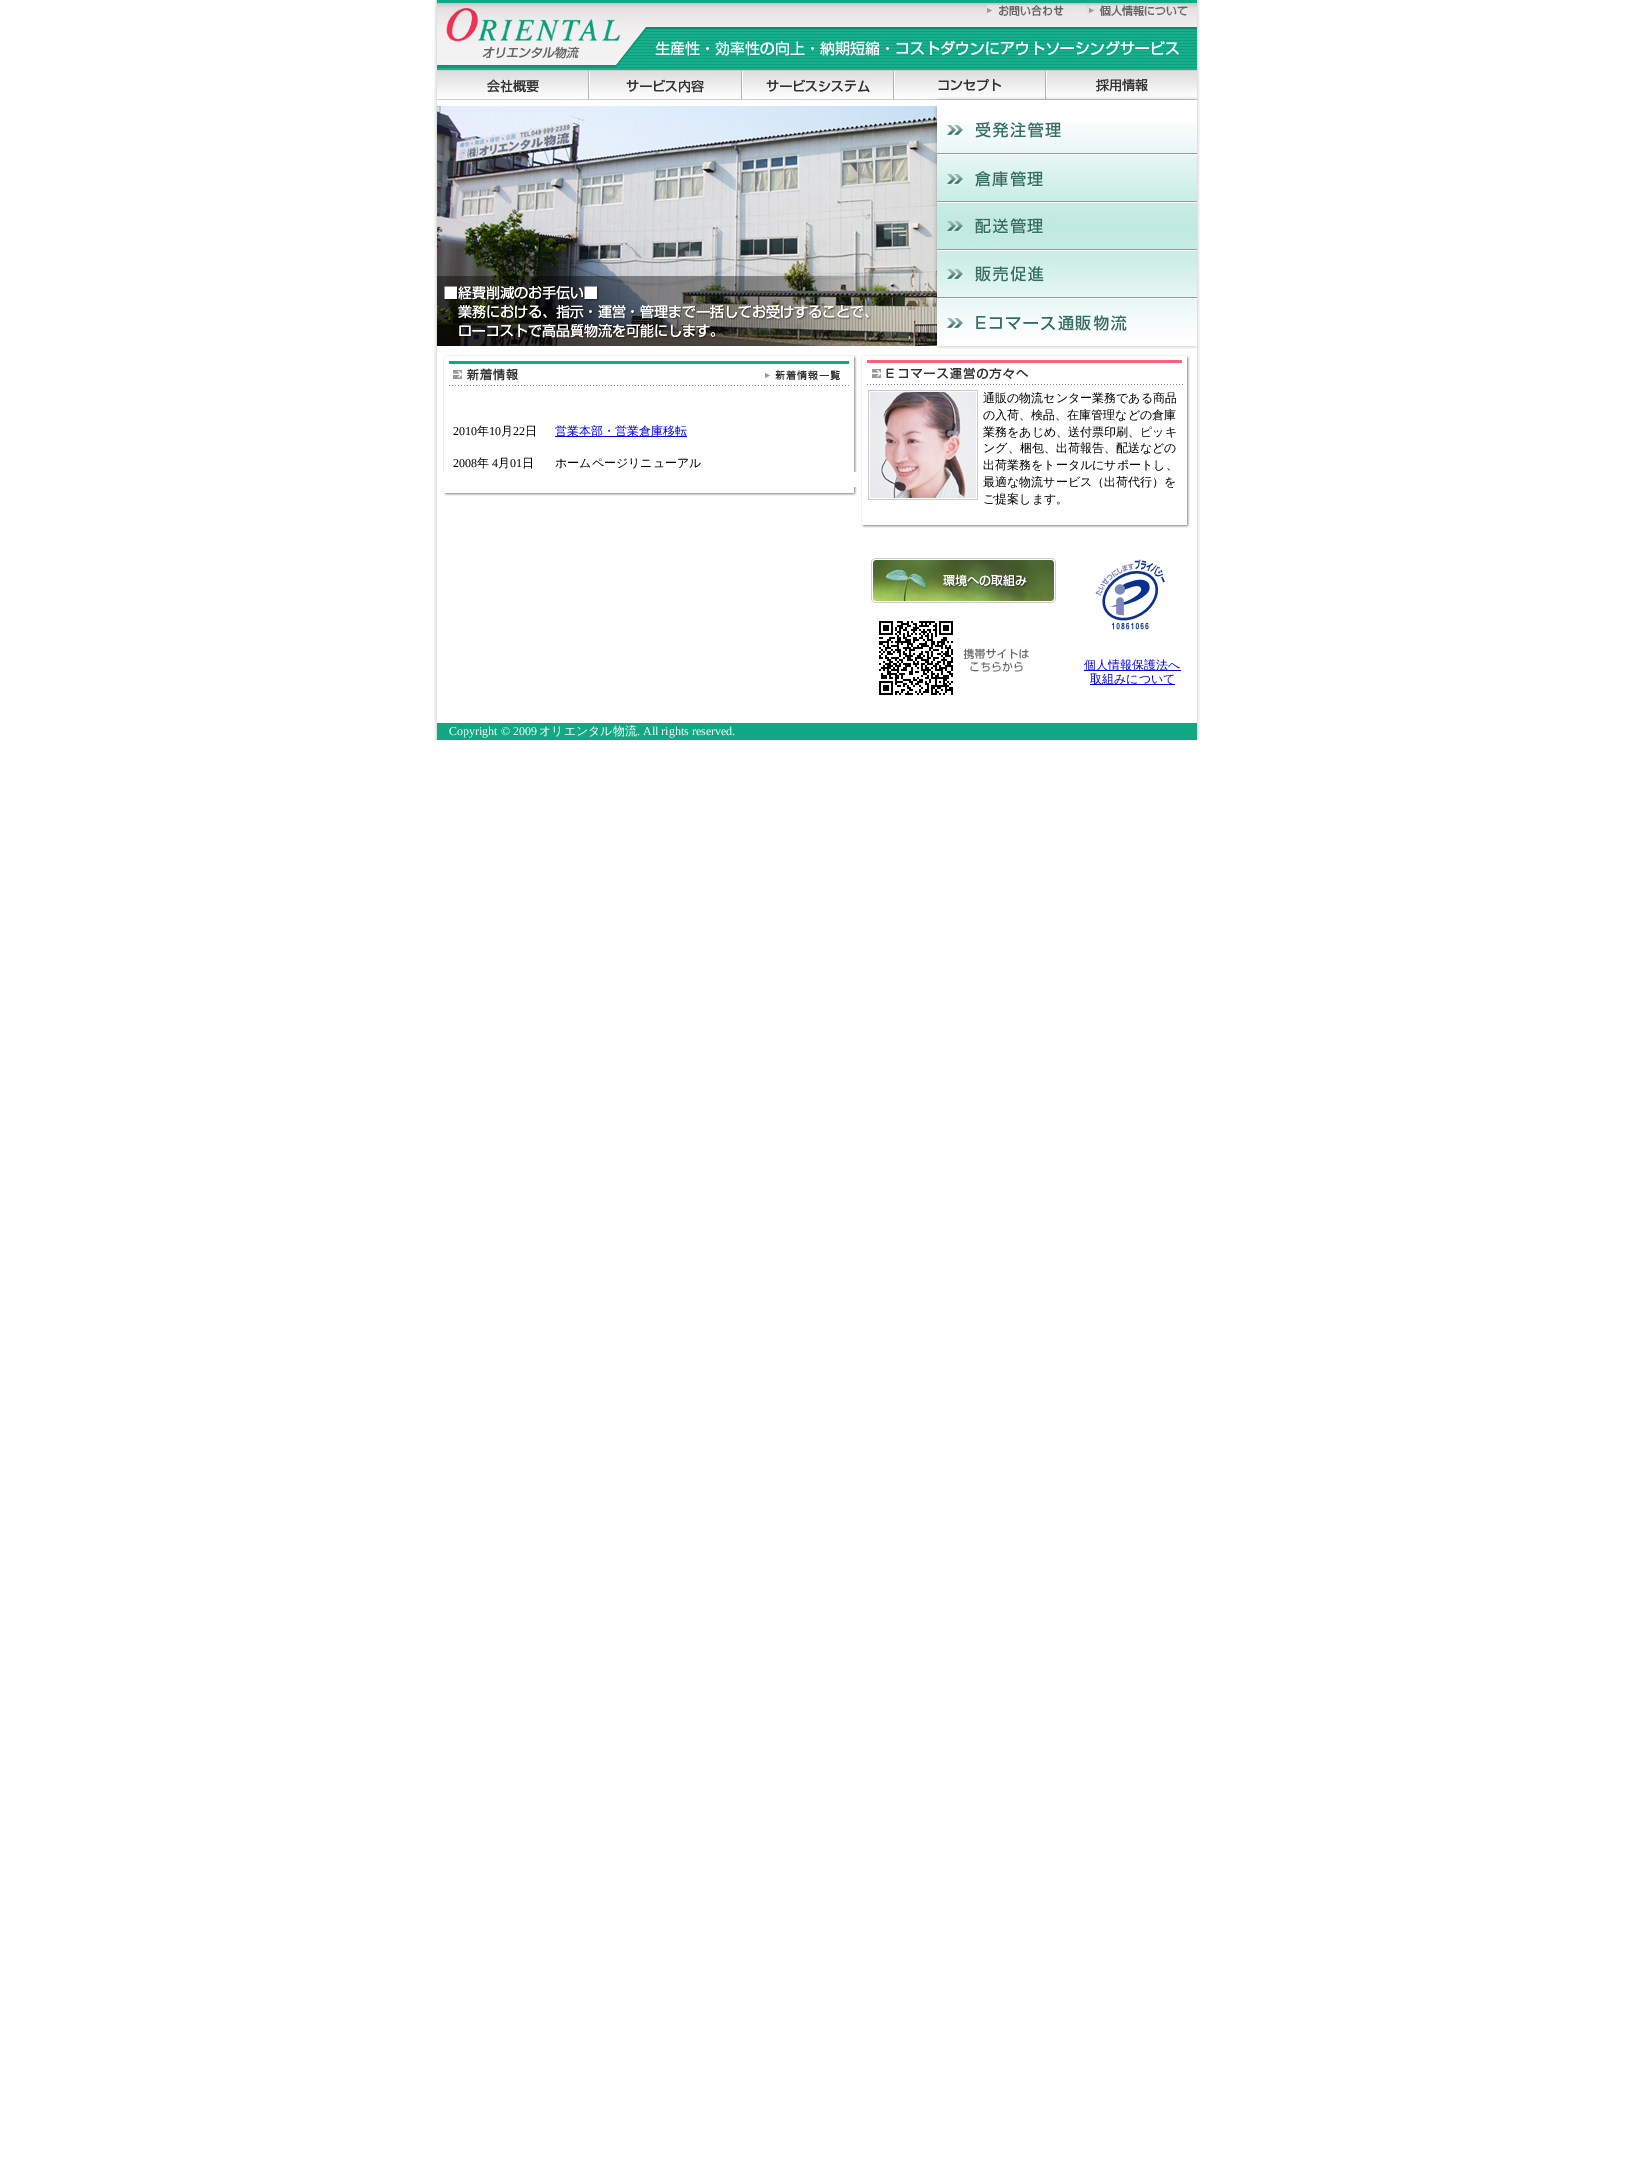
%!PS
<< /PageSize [1633 2163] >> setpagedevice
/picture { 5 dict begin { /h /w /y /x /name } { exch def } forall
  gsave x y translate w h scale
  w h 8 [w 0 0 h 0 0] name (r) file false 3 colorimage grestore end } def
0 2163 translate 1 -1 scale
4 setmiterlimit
1 setgray
0 0 1633 2163 rectfill
(img1.rgb) 434 0 766 740 picture
(img2.rgb) 437 0 209 70 picture
(img3.rgb) 646 0 551 27 picture
(img4.rgb) 987 5 99 11 picture
(img5.rgb) 1089 5 99 11 picture
(img6.rgb) 646 27 551 43 picture
(img7.rgb) 437 70 152 30 picture
(img8.rgb) 589 70 153 30 picture
(img9.rgb) 742 70 152 30 picture
(img10.rgb) 894 70 152 30 picture
(img11.rgb) 1046 70 151 30 picture
(img12.rgb) 437 106 500 240 picture
(img13.rgb) 937 122 260 32 picture
(img14.rgb) 937 155 260 47 picture
(img15.rgb) 937 203 260 47 picture
(img16.rgb) 937 251 260 47 picture
(img17.rgb) 937 299 260 50 picture
(img18.rgb) 443 355 414 31 picture
(img19.rgb) 443 386 414 86 picture
/LiberationSerif-Regular [12 0 0 -12 0 0] selectfont
0 setgray
453 435 moveto (2010) show
/WenQuanYiZenHei-Medium [12 0 0 -12 0 0] selectfont
477 435 moveto (年) show
/LiberationSerif-Regular [12 0 0 -12 0 0] selectfont
489 435 moveto (10) show
/WenQuanYiZenHei-Medium [12 0 0 -12 0 0] selectfont
501 435 moveto (月) show
/LiberationSerif-Regular [12 0 0 -12 0 0] selectfont
513 435 moveto (22) show
/WenQuanYiZenHei-Medium [12 0 0 -12 0 0] selectfont
525 435 moveto (日) show
0 0 0.933 setrgbcolor
555 436 132 1 rectfill
555 435 moveto (営業本部・営業倉庫移転) show
/LiberationSerif-Regular [12 0 0 -12 0 0] selectfont
0 setgray
453 467 moveto (2008) show
/WenQuanYiZenHei-Medium [12 0 0 -12 0 0] selectfont
477 467 moveto (年) show
/LiberationSerif-Regular [12 0 0 -12 0 0] selectfont
492 467 moveto (4) show
/WenQuanYiZenHei-Medium [12 0 0 -12 0 0] selectfont
498 467 moveto (月) show
/LiberationSerif-Regular [12 0 0 -12 0 0] selectfont
510 467 moveto (01) show
/WenQuanYiZenHei-Medium [12 0 0 -12 0 0] selectfont
522 467 moveto (日) show
555 467 moveto (ホームページリニューアル) show
(img20.rgb) 443 487 414 9 picture
(img21.rgb) 861 355 329 30 picture
(img22.rgb) 861 385 329 138 picture
(img23.rgb) 868 390 110 110 picture
983 402 moveto (通販の物流センター業務である商品) show
983 419 moveto (の入荷、検品、在庫管理などの倉庫) show
983 436 moveto (業務をあじめ、送付票印刷、ピッキ) show
983 452 moveto (ング、梱包、出荷報告、配送などの) show
983 469 moveto (出荷業務をトータルにサポートし、) show
983 486 moveto (最適な物流サービス（出荷代行）を) show
983 503 moveto (ご提案します。) show
(img24.rgb) 861 523 329 5 picture
(img25.rgb) 871 558 185 45 picture
(img26.rgb) 879 621 151 79 picture
(img27.rgb) 1095 559 70 71 picture
0 0 0.933 setrgbcolor
1084 670 97 1 rectfill
1084 669 moveto (個人情報保護法へ) show
1090 684 85 1 rectfill
1090 683 moveto (取組みについて) show
0.075 0.659 0.518 setrgbcolor
437 723 760 17 rectfill
/LiberationSerif-Regular [12 0 0 -12 0 0] selectfont
1 setgray
449 735 moveto (Copyright © 2009) show
/WenQuanYiZenHei-Medium [12 0 0 -12 0 0] selectfont
539 735 moveto (オリエンタル物流) show
/LiberationSerif-Regular [12 0 0 -12 0 0] selectfont
637 735 moveto (. All rights reserved.) show
showpage
